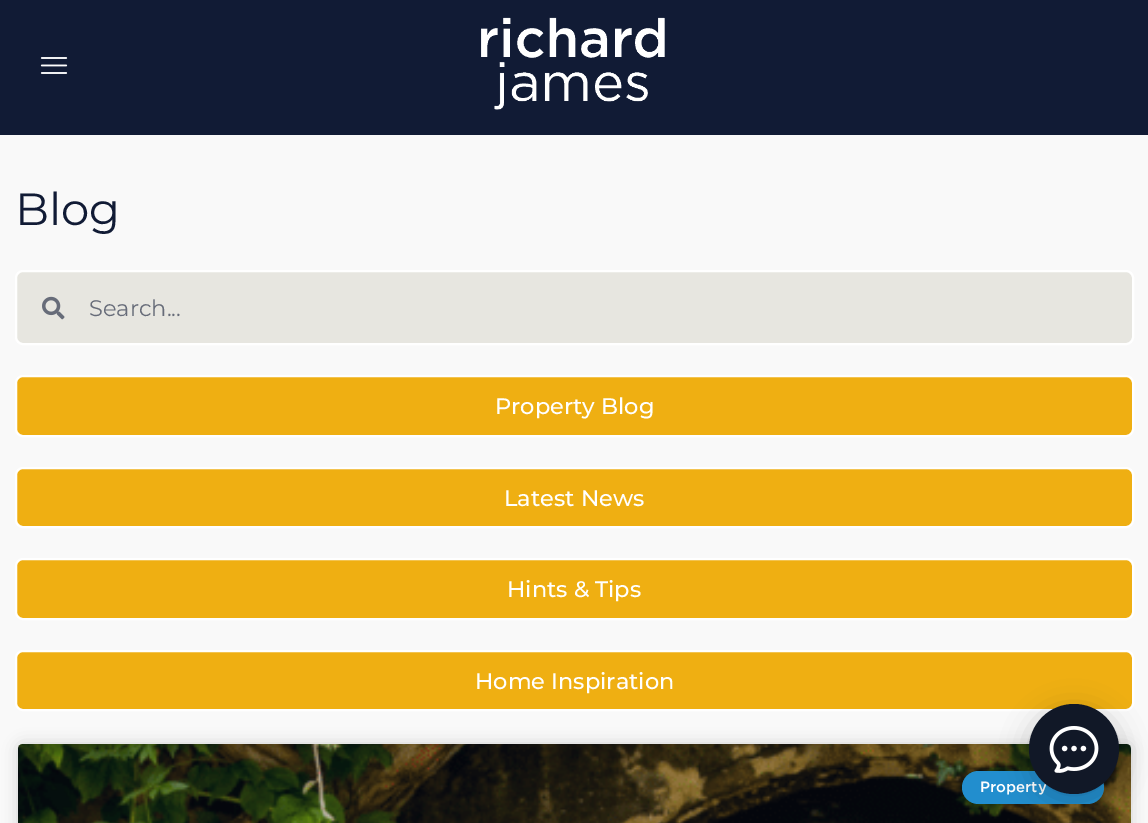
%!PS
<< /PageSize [1148 823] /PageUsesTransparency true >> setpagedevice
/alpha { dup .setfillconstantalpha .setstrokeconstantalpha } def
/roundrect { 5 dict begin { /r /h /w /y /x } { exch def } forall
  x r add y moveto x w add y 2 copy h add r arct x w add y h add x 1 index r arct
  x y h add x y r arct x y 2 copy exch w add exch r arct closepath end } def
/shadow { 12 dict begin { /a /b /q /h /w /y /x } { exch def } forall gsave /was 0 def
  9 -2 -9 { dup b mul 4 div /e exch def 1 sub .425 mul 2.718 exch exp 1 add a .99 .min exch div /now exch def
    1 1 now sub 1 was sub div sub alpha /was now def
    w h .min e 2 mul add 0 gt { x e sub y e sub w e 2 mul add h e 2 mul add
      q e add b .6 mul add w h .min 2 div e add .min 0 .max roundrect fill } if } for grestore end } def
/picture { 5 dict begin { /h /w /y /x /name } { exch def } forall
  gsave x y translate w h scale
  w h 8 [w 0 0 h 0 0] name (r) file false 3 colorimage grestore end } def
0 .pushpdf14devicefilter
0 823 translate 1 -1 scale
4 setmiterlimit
0.976 setgray
0 0 1148 823 rectfill
0.067 0.106 0.208 setrgbcolor
0 0 1148 135 rectfill
(img1.rgb) 40 57 28 17 picture
(img2.rgb) 481 17 184 93 picture
/Montserrat-Regular [45 0 0 -45 0 0] selectfont
15 225 moveto (Blog) show
0.906 0.902 0.878 setrgbcolor
16 271 1117 73 7 roundrect gsave fill grestore
1 setgray
2 setlinewidth
stroke
(img3.rgb) 42 296 23 24 picture
/Montserrat-Regular [22.5 0 0 -22.5 0 0] selectfont
0.404 0.424 0.475 setrgbcolor
89 316 moveto (Search...) show
0.937 0.686 0.071 setrgbcolor
16 376 1117 60 7 roundrect gsave fill grestore
1 setgray
stroke
/Montserrat-Medium [22.5 0 0 -22.5 0 0] selectfont
495 414 moveto (Property Blog) show
0.937 0.686 0.071 setrgbcolor
16 468 1117 59 7 roundrect gsave fill grestore
1 setgray
stroke
504 506 moveto (Latest News) show
0.937 0.686 0.071 setrgbcolor
16 559 1117 60 7 roundrect gsave fill grestore
1 setgray
stroke
507 597 moveto (Hints & Tips) show
0.937 0.686 0.071 setrgbcolor
16 651 1117 59 7 roundrect gsave fill grestore
1 setgray
stroke
475 689 moveto (Home Inspiration) show
0 setgray
18 744 1113 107 5 7.5 0.15 shadow
(img4.rgb) 18 744 1113 79 picture
0.133 0.557 0.808 setrgbcolor
962 771 142 33 16.5 roundrect fill
/Gotham-Medium [15 0 0 -15 0 0] selectfont
1 setgray
980 792 moveto (Property) show
0 setgray
1029 710 90 90 45 14 0.2 shadow
0.067 0.094 0.153 setrgbcolor
newpath 1074 749 45 0 360 arc closepath fill
(img5.rgb) 1049 726 50 47 picture
.poppdf14devicefilter showpage
